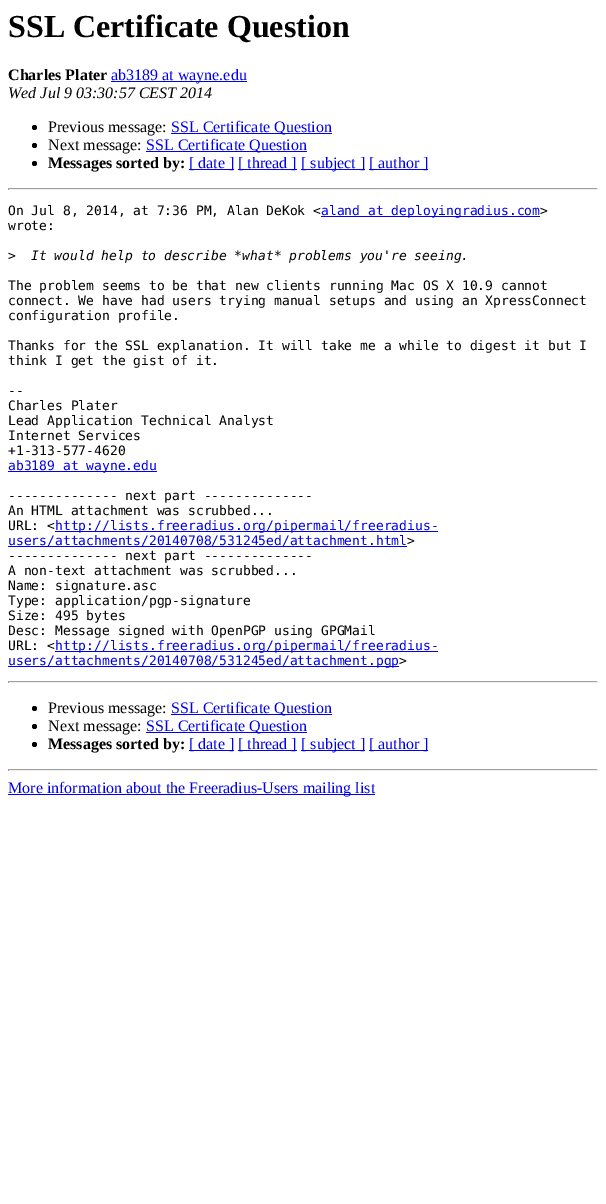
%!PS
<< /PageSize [606 1204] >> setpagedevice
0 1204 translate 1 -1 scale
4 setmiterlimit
1 setgray
0 0 606 1204 rectfill
/LiberationSerif-Bold [32 0 0 -32 0 0] selectfont
0 setgray
8 37 moveto (SSL Certificate Question) show
/LiberationSerif-Bold [16 0 0 -16 0 0] selectfont
8 80 moveto (Charles Plater) show
0 0 0.933 setrgbcolor
111 81 136 1 rectfill
/LiberationSerif-Regular [16 0 0 -16 0 0] selectfont
111 80 moveto (ab3189 at wayne.edu) show
/LiberationSerif-Italic [16 0 0 -16 0 0] selectfont
0 setgray
8 98 moveto (Wed Jul 9 03:30:57 CEST 2014) show
newpath 34.5 127.5 2.5 0 360 arc closepath fill
/LiberationSerif-Regular [16 0 0 -16 0 0] selectfont
48 132 moveto (Previous message:) show
0 0 0.933 setrgbcolor
171 133 161 1 rectfill
171 132 moveto (SSL Certificate Question) show
0 setgray
newpath 34.5 145.5 2.5 0 360 arc closepath fill
48 150 moveto (Next message:) show
0 0 0.933 setrgbcolor
146 151 161 1 rectfill
146 150 moveto (SSL Certificate Question) show
0 setgray
newpath 34.5 163.5 2.5 0 360 arc closepath fill
/LiberationSerif-Bold [16 0 0 -16 0 0] selectfont
48 168 moveto (Messages sorted by:) show
0 0 0.933 setrgbcolor
189 169 45 1 rectfill
/LiberationSerif-Regular [16 0 0 -16 0 0] selectfont
189 168 moveto ([ date ]) show
238 169 59 1 rectfill
238 168 moveto ([ thread ]) show
301 169 64 1 rectfill
301 168 moveto ([ subject ]) show
369 169 59 1 rectfill
369 168 moveto ([ author ]) show
0.624 setgray
8 188 590 1 rectfill
0.933 setgray
597 188 1 2 rectfill
8 189 590 1 rectfill
0.624 setgray
8 188 1 2 rectfill
/DejaVuSansMono-Regular [13 0 0 -13 0 0] selectfont
0 setgray
8 215 moveto (On Jul 8, 2014, at 7:36 PM, Alan DeKok <) show
0 0 0.933 setrgbcolor
321 216 219 1 rectfill
321 215 moveto (aland at deployingradius.com) show
0 setgray
540 215 moveto (>) show
8 230 moveto (wrote:) show
8 260 moveto (>) show
/DejaVuSansMono-Italic [13 0 0 -13 0 0] selectfont
31 260 moveto (It would help to describe *what* problems you're seeing.) show
/DejaVuSansMono-Regular [13 0 0 -13 0 0] selectfont
8 290 moveto (The problem seems to be that new clients running Mac OS X 10.9 cannot) show
8 305 moveto (connect. We have had users trying manual setups and using an XpressConnect) show
8 320 moveto (configuration profile.) show
8 350 moveto (Thanks for the SSL explanation. It will take me a while to digest it but I) show
8 365 moveto (think I get the gist of it.) show
8 395 moveto (--) show
8 410 moveto (Charles Plater) show
8 425 moveto (Lead Application Technical Analyst) show
8 440 moveto (Internet Services) show
8 455 moveto (+1-313-577-4620) show
0 0 0.933 setrgbcolor
8 471 149 1 rectfill
8 470 moveto (ab3189 at wayne.edu) show
0 setgray
8 500 moveto (-------------- next part --------------) show
8 515 moveto (An HTML attachment was scrubbed...) show
8 530 moveto (URL: <) show
0 0 0.933 setrgbcolor
55 531 383 1 rectfill
55 530 moveto (http://lists.freeradius.org/pipermail/freeradius-) show
8 546 399 1 rectfill
8 545 moveto (users/attachments/20140708/531245ed/attachment.html) show
0 setgray
407 545 moveto (>) show
8 560 moveto (-------------- next part --------------) show
8 575 moveto (A non-text attachment was scrubbed...) show
8 590 moveto (Name: signature.asc) show
8 605 moveto (Type: application/pgp-signature) show
8 620 moveto (Size: 495 bytes) show
8 635 moveto (Desc: Message signed with OpenPGP using GPGMail) show
8 650 moveto (URL: <) show
0 0 0.933 setrgbcolor
55 651 383 1 rectfill
55 650 moveto (http://lists.freeradius.org/pipermail/freeradius-) show
8 666 391 1 rectfill
8 665 moveto (users/attachments/20140708/531245ed/attachment.pgp) show
0 setgray
399 665 moveto (>) show
0.624 setgray
8 681 590 1 rectfill
0.933 setgray
597 681 1 2 rectfill
8 682 590 1 rectfill
0.624 setgray
8 681 1 2 rectfill
0 setgray
newpath 34.5 708.5 2.5 0 360 arc closepath fill
/LiberationSerif-Regular [16 0 0 -16 0 0] selectfont
48 713 moveto (Previous message:) show
0 0 0.933 setrgbcolor
171 714 161 1 rectfill
171 713 moveto (SSL Certificate Question) show
0 setgray
newpath 34.5 726.5 2.5 0 360 arc closepath fill
48 731 moveto (Next message:) show
0 0 0.933 setrgbcolor
146 732 161 1 rectfill
146 731 moveto (SSL Certificate Question) show
0 setgray
newpath 34.5 744.5 2.5 0 360 arc closepath fill
/LiberationSerif-Bold [16 0 0 -16 0 0] selectfont
48 749 moveto (Messages sorted by:) show
0 0 0.933 setrgbcolor
189 750 45 1 rectfill
/LiberationSerif-Regular [16 0 0 -16 0 0] selectfont
189 749 moveto ([ date ]) show
238 750 59 1 rectfill
238 749 moveto ([ thread ]) show
301 750 64 1 rectfill
301 749 moveto ([ subject ]) show
369 750 59 1 rectfill
369 749 moveto ([ author ]) show
0.624 setgray
8 769 590 1 rectfill
0.933 setgray
597 769 1 2 rectfill
8 770 590 1 rectfill
0.624 setgray
8 769 1 2 rectfill
0 0 0.933 setrgbcolor
8 794 367 1 rectfill
8 793 moveto (More information about the Freeradius-Users mailing list) show
showpage
